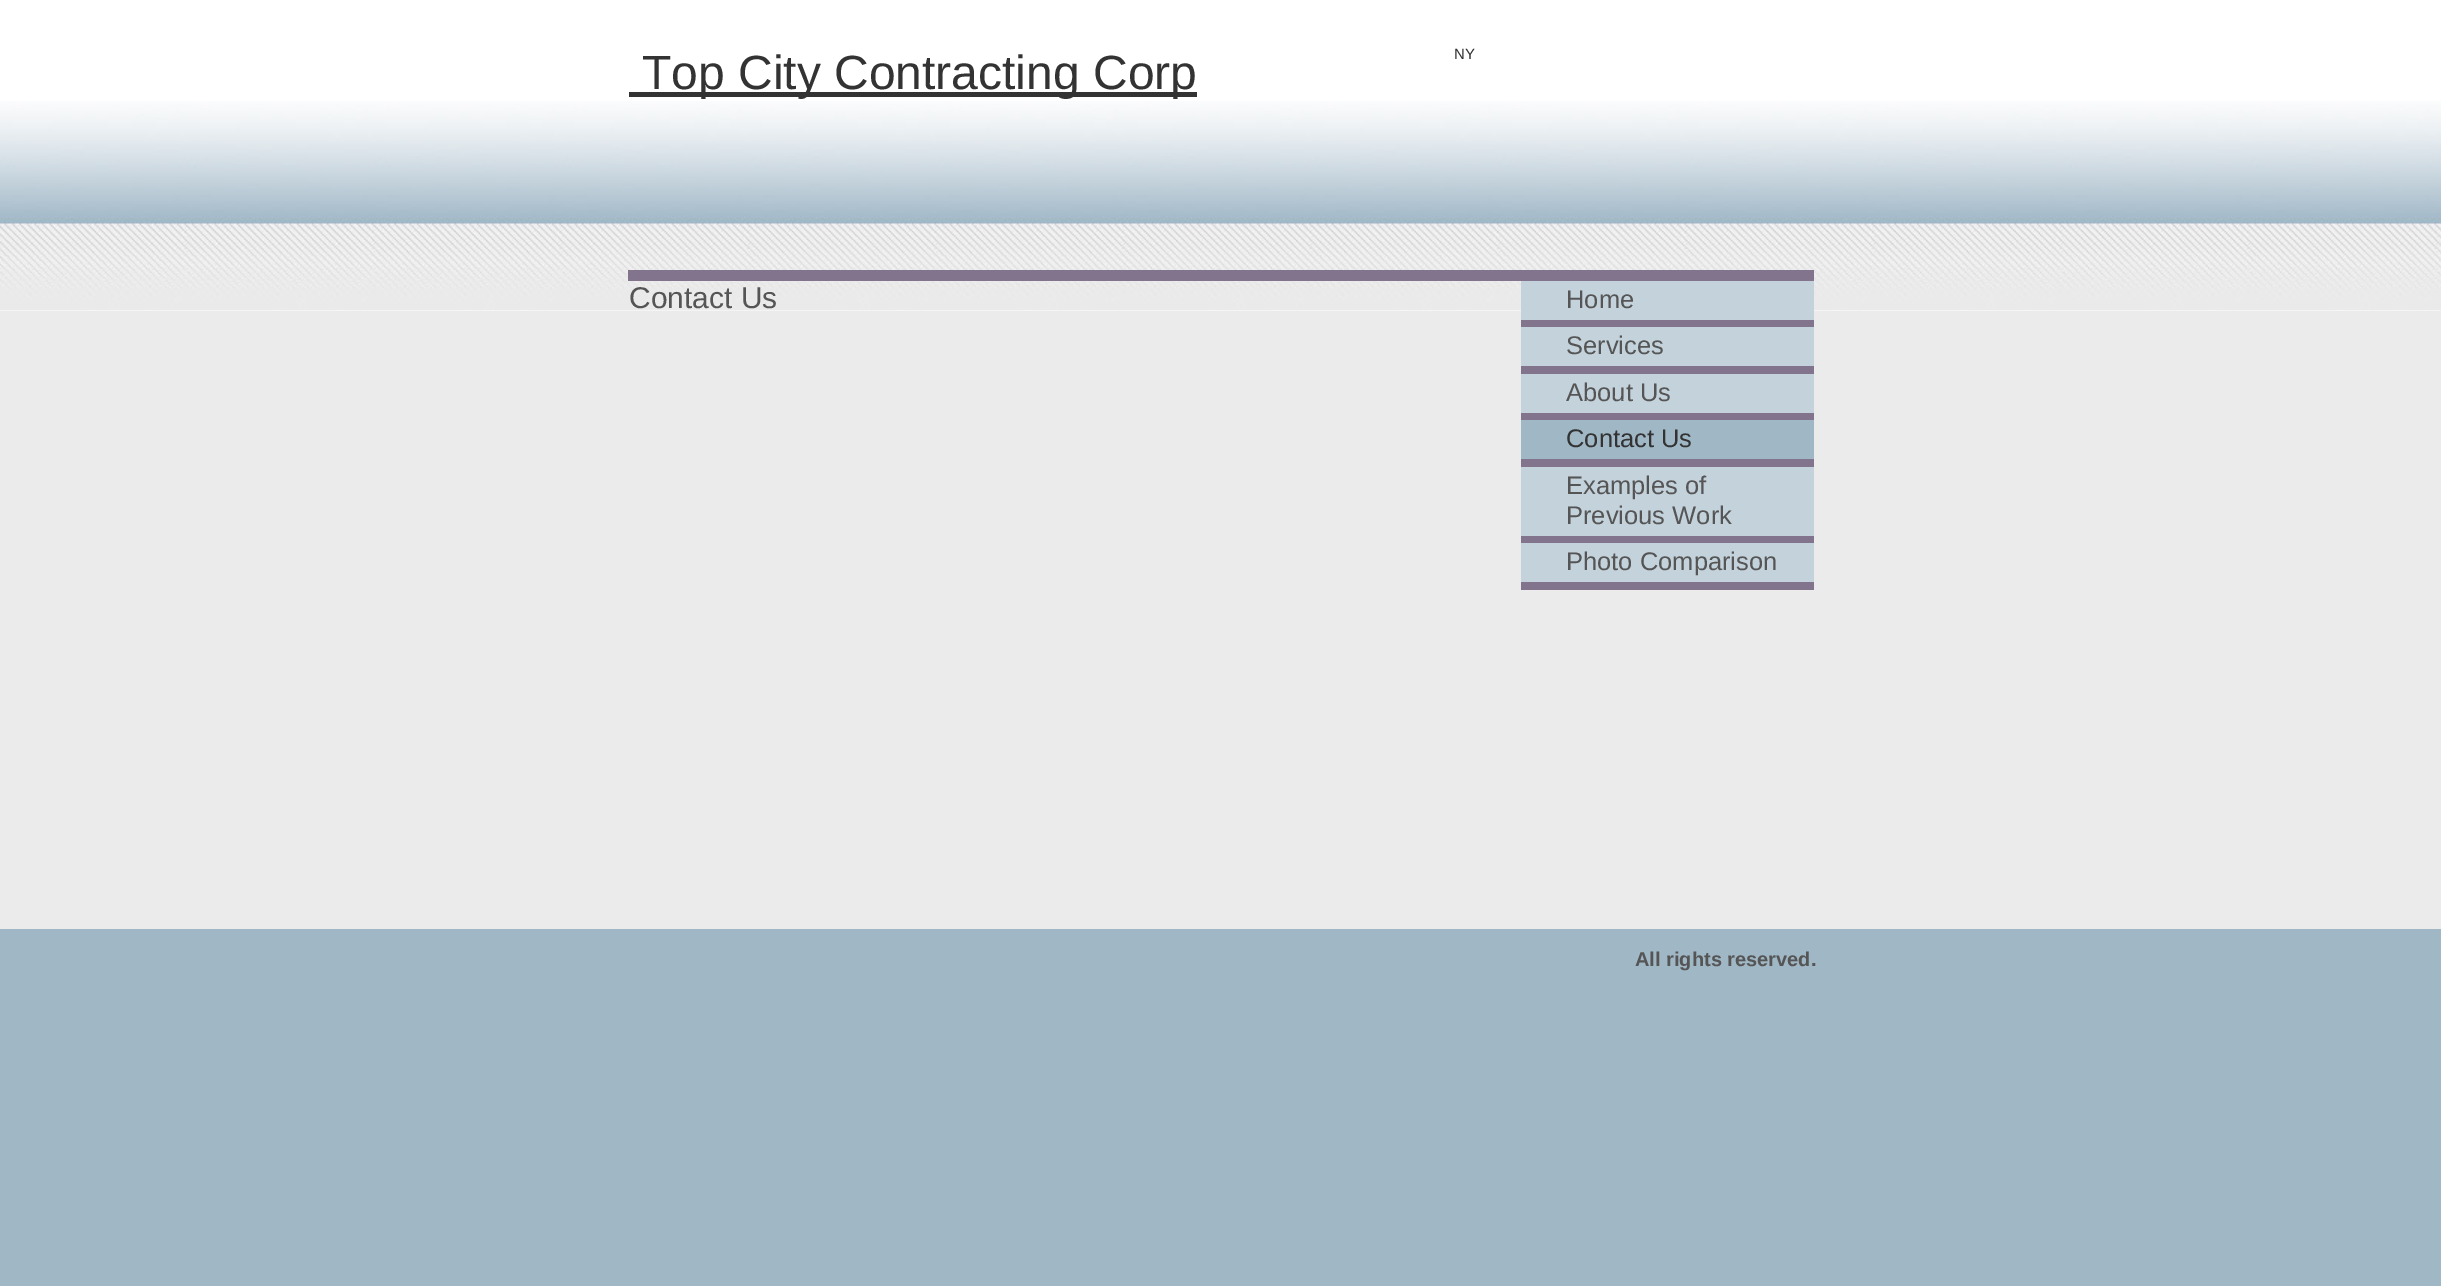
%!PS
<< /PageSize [2441 1286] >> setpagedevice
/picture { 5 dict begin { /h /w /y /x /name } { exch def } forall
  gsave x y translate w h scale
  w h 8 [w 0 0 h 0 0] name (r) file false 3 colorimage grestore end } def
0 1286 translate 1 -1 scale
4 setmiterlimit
0.627 0.718 0.776 setrgbcolor
0 0 2441 1286 rectfill
0.922 setgray
0 311 2441 618 rectfill
1 setgray
0 0 2441 311 rectfill
(img1.rgb) 0 101 2441 210 picture
0.2 setgray
629 92 568 5 rectfill
/LiberationSans-Regular [48 0 0 -48 0 0] selectfont
642 89 moveto (Top City Contracting Corp) show
/LiberationSans-Regular [15 0 0 -15 0 0] selectfont
1454 59 moveto (NY) show
0.514 0.455 0.553 setrgbcolor
628 270 1186 11 rectfill
/LiberationSans-Regular [30 0 0 -30 0 0] selectfont
0.333 setgray
629 308 moveto (Contact Us) show
0.514 0.455 0.553 setrgbcolor
1521 320 293 7 rectfill
0.769 0.824 0.863 setrgbcolor
1521 281 293 39 rectfill
/LiberationSans-Regular [25.5 0 0 -25.5 0 0] selectfont
0.333 setgray
1566 308 moveto (Home) show
0.514 0.455 0.553 setrgbcolor
1521 366 293 8 rectfill
0.769 0.824 0.863 setrgbcolor
1521 327 293 39 rectfill
0.333 setgray
1566 354 moveto (Services) show
0.514 0.455 0.553 setrgbcolor
1521 413 293 7 rectfill
0.769 0.824 0.863 setrgbcolor
1521 374 293 39 rectfill
0.333 setgray
1566 401 moveto (About Us) show
0.514 0.455 0.553 setrgbcolor
1521 459 293 8 rectfill
0.627 0.718 0.776 setrgbcolor
1521 420 293 39 rectfill
0.2 setgray
1566 447 moveto (Contact Us) show
0.514 0.455 0.553 setrgbcolor
1521 536 293 7 rectfill
0.769 0.824 0.863 setrgbcolor
1521 467 293 69 rectfill
0.333 setgray
1566 494 moveto (Examples of) show
1566 524 moveto (Previous Work) show
0.514 0.455 0.553 setrgbcolor
1521 582 293 8 rectfill
0.769 0.824 0.863 setrgbcolor
1521 543 293 39 rectfill
0.333 setgray
1566 570 moveto (Photo Comparison) show
/LiberationSans-Bold [20 0 0 -20 0 0] selectfont
1635 966 moveto (All rights reserved.) show
showpage
